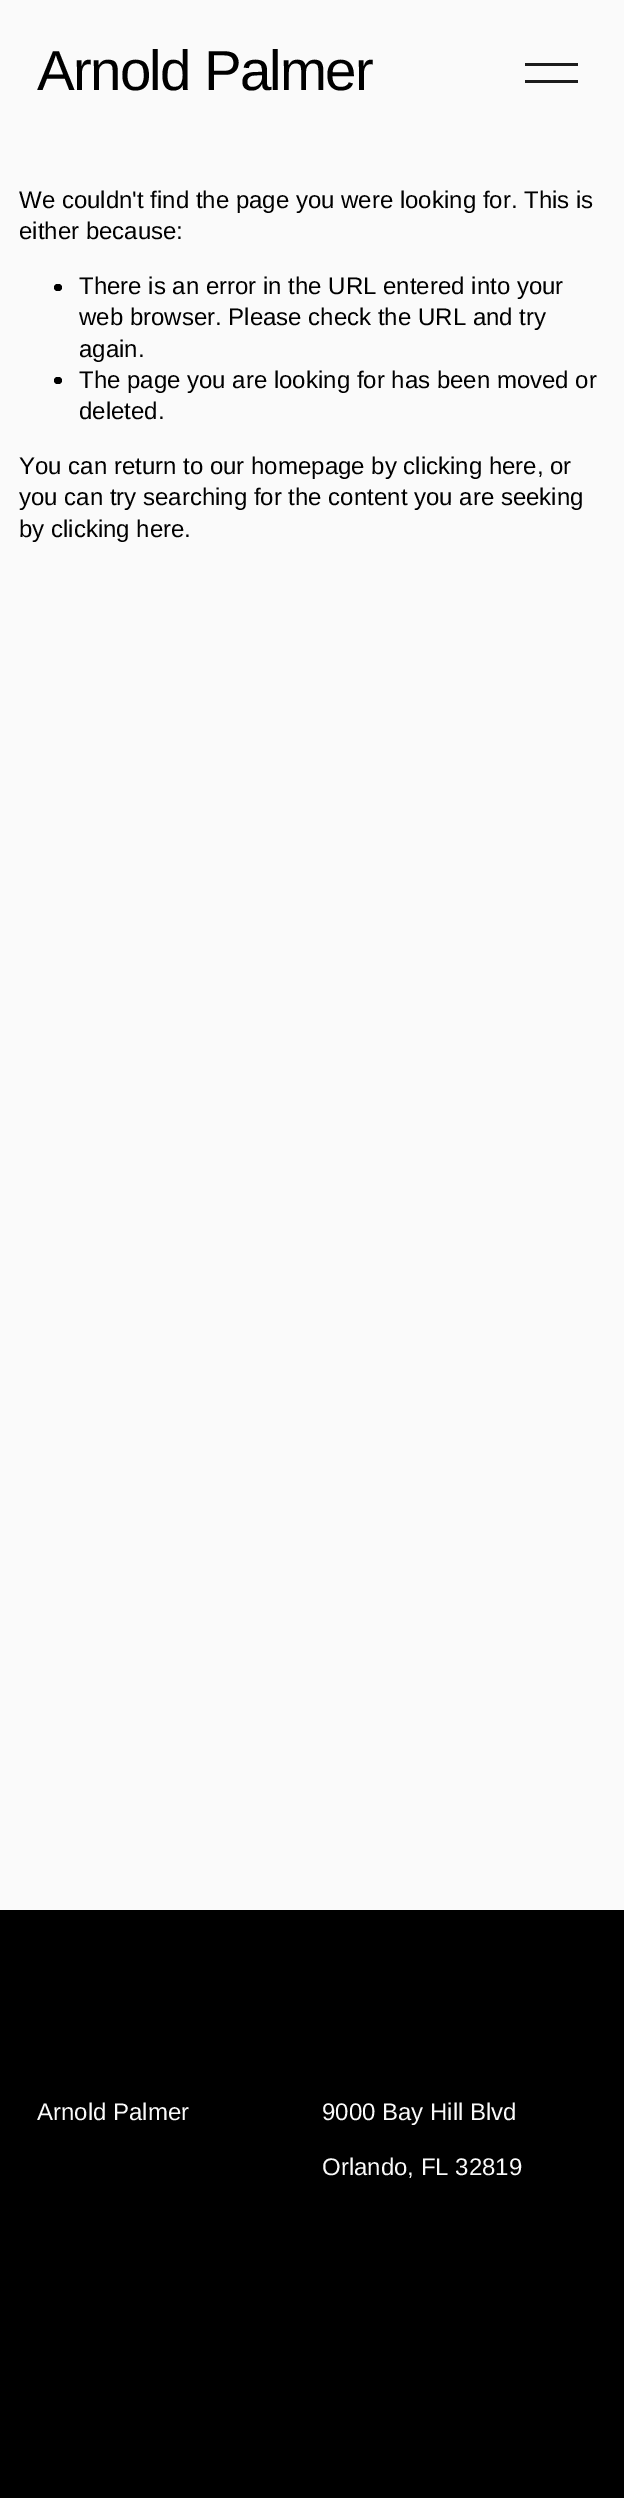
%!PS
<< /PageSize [624 2498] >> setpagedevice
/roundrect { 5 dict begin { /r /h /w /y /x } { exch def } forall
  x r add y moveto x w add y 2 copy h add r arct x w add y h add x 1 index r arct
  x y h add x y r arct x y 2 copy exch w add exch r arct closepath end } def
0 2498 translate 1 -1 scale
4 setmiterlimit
0.98 setgray
0 0 624 2498 rectfill
/LiberationSans-Regular [56.5 0 0 -56.5 0 0] selectfont
0 setgray
37 90 moveto -1.75 0 (Arnold Palmer) ashow
0.11 setgray
525 63 53 3 rectfill
525 80 53 3 rectfill
/LiberationSans-Regular [24 0 0 -24 0 0] selectfont
0 setgray
19 208 moveto (We couldn't find the page you were looking for. This is) show
19 239 moveto (either because:) show
54 284 8 7 3.5 roundrect fill
79 294 moveto (There is an error in the URL entered into your) show
79 325 moveto (web browser. Please check the URL and try) show
79 357 moveto (again.) show
54 377 8 7 3.5 roundrect fill
79 388 moveto (The page you are looking for has been moved or) show
79 419 moveto (deleted.) show
19 474 moveto (You can return to our homepage by clicking here, or) show
19 505 moveto (you can try searching for the content you are seeking) show
19 537 moveto (by clicking here.) show
0 1910 624 588 rectfill
0.98 setgray
37 2120 moveto (Arnold Palmer) show
322 2120 moveto (9000 Bay Hill Blvd) show
322 2175 moveto (Orlando, FL 32819) show
showpage
